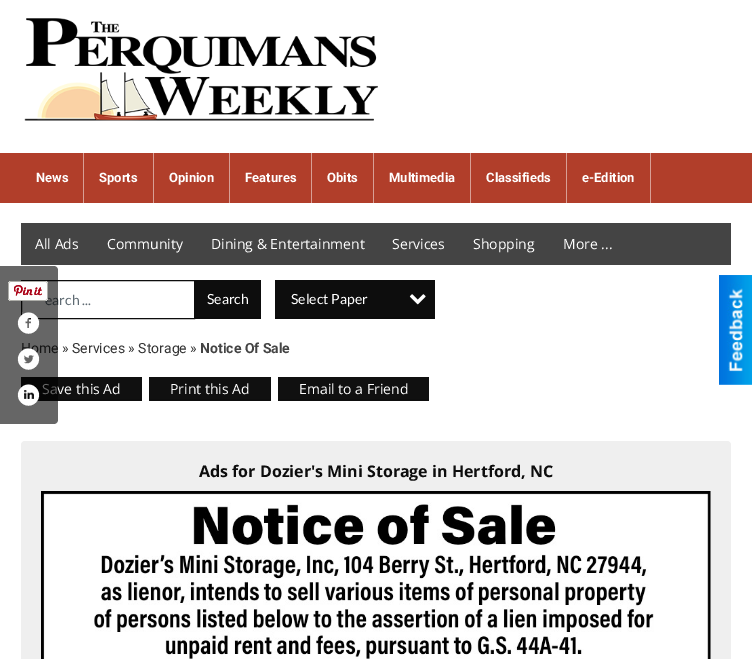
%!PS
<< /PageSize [752 659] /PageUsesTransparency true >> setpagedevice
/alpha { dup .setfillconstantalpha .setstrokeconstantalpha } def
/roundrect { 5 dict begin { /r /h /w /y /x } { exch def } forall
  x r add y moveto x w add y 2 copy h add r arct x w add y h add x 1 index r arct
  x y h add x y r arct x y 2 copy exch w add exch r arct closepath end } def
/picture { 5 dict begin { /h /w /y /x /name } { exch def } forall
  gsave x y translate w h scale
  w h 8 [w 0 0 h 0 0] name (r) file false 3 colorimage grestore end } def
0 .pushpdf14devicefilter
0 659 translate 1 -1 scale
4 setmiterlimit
1 setgray
0 0 752 659 rectfill
(img1.rgb) 24 18 354 103 picture
0.694 0.243 0.165 setrgbcolor
0 153 752 50 rectfill
0.847 0.624 0.584 setrgbcolor
83 153 1 50 rectfill
/Roboto-Bold [13 0 0 -13 0 0] selectfont
1 setgray
36 182 moveto (News) show
0.847 0.624 0.584 setrgbcolor
153 153 1 50 rectfill
1 setgray
99 182 moveto (Sports) show
0.847 0.624 0.584 setrgbcolor
229 153 1 50 rectfill
1 setgray
169 182 moveto (Opinion) show
0.847 0.624 0.584 setrgbcolor
311 153 1 50 rectfill
1 setgray
245 182 moveto (Features) show
0.847 0.624 0.584 setrgbcolor
373 153 1 50 rectfill
1 setgray
327 182 moveto (Obits) show
0.847 0.624 0.584 setrgbcolor
470 153 1 50 rectfill
1 setgray
389 182 moveto (Multimedia) show
0.847 0.624 0.584 setrgbcolor
566 153 1 50 rectfill
1 setgray
486 182 moveto (Classifieds) show
0.847 0.624 0.584 setrgbcolor
650 153 1 50 rectfill
1 setgray
582 182 moveto (e-Edition) show
0.267 setgray
21 223 710 42 rectfill
/OpenSans-Regular [14 0 0 -14 0 0] selectfont
1 setgray
35 249 moveto (All Ads) show
107 249 moveto (Community) show
211 249 moveto (Dining & Entertainment) show
392 249 moveto (Services) show
473 249 moveto (Shopping) show
563 249 moveto (More ...) show
0.051 setgray
21.5 280.5 173 38 rectstroke
/Lato-Regular [14 0 0 -14 0 0] selectfont
0.373 0.42 0.451 setrgbcolor
45 305 moveto (earch ...) show
0.051 setgray
195 280 66 37 rectfill
0.043 setgray
195 317 66 2 rectfill
1 setgray
207 304 moveto (Search) show
0.051 setgray
275 280 160 37 rectfill
0.043 setgray
275 317 160 2 rectfill
1 setgray
291 304 moveto (Select Paper) show
(img2.rgb) 409 294 17 11 picture
/Roboto-Regular [14 0 0 -14 0 0] selectfont
0.2 setgray
21 353 moveto (Home » Services » Storage ») show
/Roboto-Bold [14 0 0 -14 0 0] selectfont
0.267 setgray
200 353 moveto (Notice Of Sale) show
0.063 setgray
21 377 121 22 rectfill
0.055 setgray
37 399 105 2 rectfill
/OpenSans-Regular [14 0 0 -14 0 0] selectfont
1 setgray
42 394 moveto (Save this Ad) show
0.063 setgray
149 377 122 22 rectfill
0.055 setgray
149 399 122 2 rectfill
1 setgray
170 394 moveto (Print this Ad) show
0.063 setgray
278 377 151 22 rectfill
0.055 setgray
278 399 151 2 rectfill
1 setgray
299 394 moveto (Email to a Friend) show
0.937 setgray
21 441 710 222 4 roundrect fill
/OpenSans-Bold [16 0 0 -16 0 0] selectfont
0.051 setgray
199 477 moveto (Ads for Dozier's Mini Storage in Hertford, NC) show
(img3.rgb) 41 491 670 168 picture
0.6 alpha
0 setgray
newpath 0 266 moveto 54 266 lineto 56 266 58 268 58 270 curveto 58 420 lineto 58 422 56 424 54 424 curveto 0 424 lineto closepath fill
1 alpha
(img4.rgb) 8 281 40 20 picture
(img5.rgb) 17 312 23 22 picture
(img6.rgb) 17 348 23 22 picture
(img7.rgb) 17 384 23 22 picture
(img8.rgb) 719 275 33 110 picture
.poppdf14devicefilter showpage
